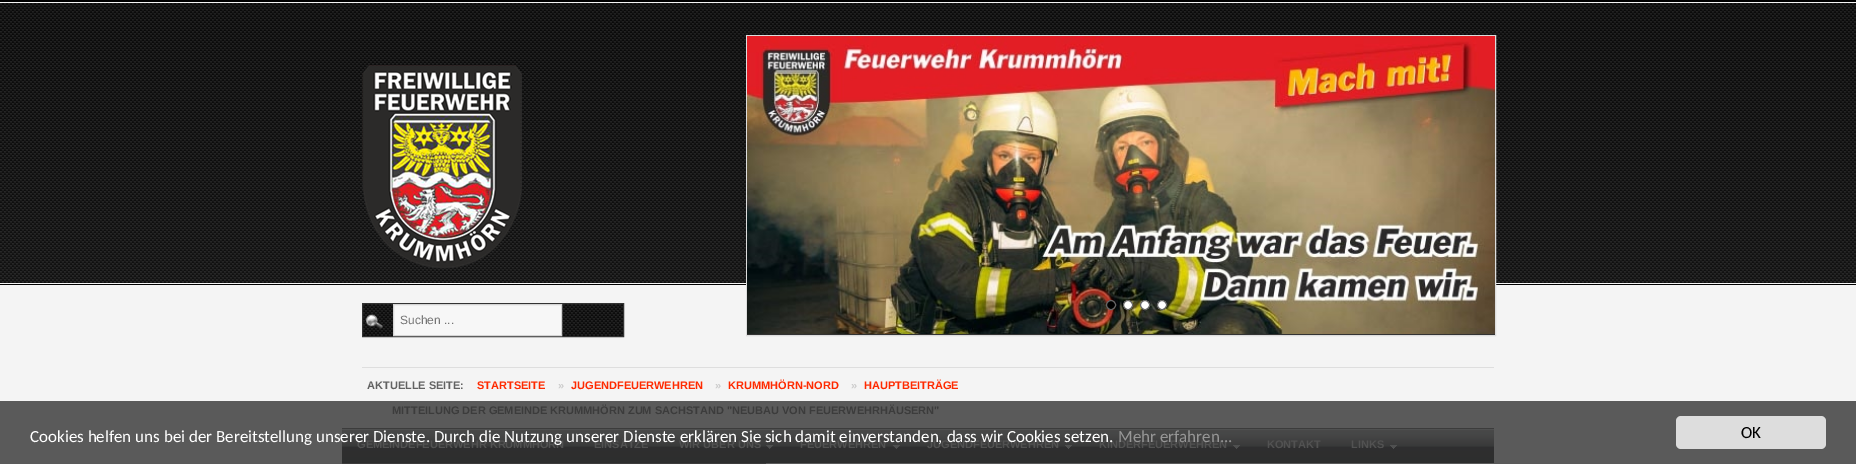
%!PS
<< /PageSize [1856 464] >> setpagedevice
/roundrect { 5 dict begin { /r /h /w /y /x } { exch def } forall
  x r add y moveto x w add y 2 copy h add r arct x w add y h add x 1 index r arct
  x y h add x y r arct x y 2 copy exch w add exch r arct closepath end } def
/picture { 5 dict begin { /h /w /y /x /name } { exch def } forall
  gsave x y translate w h scale
  w h 8 [w 0 0 h 0 0] name (r) file false 3 colorimage grestore end } def
0 464 translate 1 -1 scale
4 setmiterlimit
0.957 setgray
0 0 1856 464 rectfill
0.353 setgray
0 401 1856 63 rectfill
0 setgray
0 0 1856 2 rectfill
gsave newpath 0 3 moveto 1856 3 lineto 1856 281 lineto 0 281 lineto closepath clip newpath
<< /ShadingType 2 /ColorSpace /DeviceRGB /Coords [928 3 928 284] /Extend [true true] /Function << /FunctionType 2 /Domain [0 1] /C0 [0 0 0] /C1 [0.957 0.957 0.957] /N 1 >> >> shfill grestore
gsave newpath 0 284 moveto 1856 284 lineto 1856 285 lineto 0 285 lineto closepath clip newpath
<< /ShadingType 2 /ColorSpace /DeviceRGB /Coords [928 284 928 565] /Extend [true true] /Function << /FunctionType 2 /Domain [0 1] /C0 [0 0 0] /C1 [0.957 0.957 0.957] /N 1 >> >> shfill grestore
(img1.rgb) 0 3 1856 280 picture
(img2.rgb) 362 65 160 204 picture
0.867 setgray
746.5 35.5 749 300 rectstroke
(img3.rgb) 747 36 748 298 picture
0.2 setgray
747 334 748 1 rectfill
0 setgray
newpath 1111 305 4.5 0 360 arc closepath gsave fill grestore
0.4 setgray
stroke
1 setgray
newpath 1128 305 4.5 0 360 arc closepath gsave fill grestore
0.4 setgray
stroke
1 setgray
newpath 1145 305 4.5 0 360 arc closepath gsave fill grestore
0.4 setgray
stroke
1 setgray
newpath 1162 305 4.5 0 360 arc closepath gsave fill grestore
0.4 setgray
stroke
(img4.rgb) 363 304 260 32 picture
0.2 setgray
362.5 303.5 261 33 rectstroke
(img5.rgb) 365 314 18 15 picture
0.969 setgray
newpath 393.5 304.5 moveto 561.5 304.5 lineto 561.5 335.5 lineto 393.5 335.5 lineto closepath gsave fill grestore
0.831 setgray
stroke
/LiberationSans-Regular [12 0 0 -12 0 0] selectfont
0.459 setgray
400 324 moveto (Suchen ...) show
0.871 setgray
362 367 1132 1 rectfill
/LiberationSans-Bold [11 0 0 -11 0 0] selectfont
0.384 setgray
367 389 moveto (AKTUELLE SEITE:) show
1 0.165 0 setrgbcolor
477 389 moveto (STARTSEITE) show
0.8 setgray
558 389 moveto (») show
1 0.165 0 setrgbcolor
571 389 moveto (JUGENDFEUERWEHREN) show
0.8 setgray
715 389 moveto (») show
1 0.165 0 setrgbcolor
728 389 moveto (KRUMMHÖRN-NORD) show
0.8 setgray
851 389 moveto (») show
1 0.165 0 setrgbcolor
864 389 moveto (HAUPTBEITRÄGE) show
0.235 setgray
392 414 moveto (MITTEILUNG DER GEMEINDE KRUMMHÖRN ZUM SACHSTAND "NEUBAU VON FEUERWEHRHÄUSERN") show
(img6.rgb) 342 428 1152 35 picture
0.322 setgray
357 448 moveto (GEMEINDEFEUERWEHR KRUMMHÖRN) show
594 448 moveto (EINSÄTZE) show
(img7.rgb) 766 445 8 4 picture
679 448 moveto (WIR ÜBER UNS) show
(img8.rgb) 892 445 8 4 picture
800 448 moveto (FEUERWEHREN) show
(img9.rgb) 1065 445 7 4 picture
927 448 moveto (JUGENDFEUERWEHREN) show
(img10.rgb) 1233 445 8 4 picture
1099 448 moveto (KINDERFEUERWEHREN) show
1267 448 moveto (KONTAKT) show
(img9.rgb) 1390 445 7 4 picture
1351 448 moveto (LINKS) show
0.235 setgray
342 463 424 1 rectfill
/Carlito-Regular [17 0 0 -17 0 0] selectfont
1 setgray
30 442 moveto (Cookies helfen uns bei der Bereitstellung unserer Dienste. Durch die Nutzung unserer Dienste erklären Sie sich damit einverstanden, dass wir Cookies setzen.) show
0.588 setgray
1118 442 moveto (Mehr erfahren...) show
0.867 setgray
1676 416 150 33 5 roundrect fill
0 setgray
1741 438 moveto (OK) show
showpage
